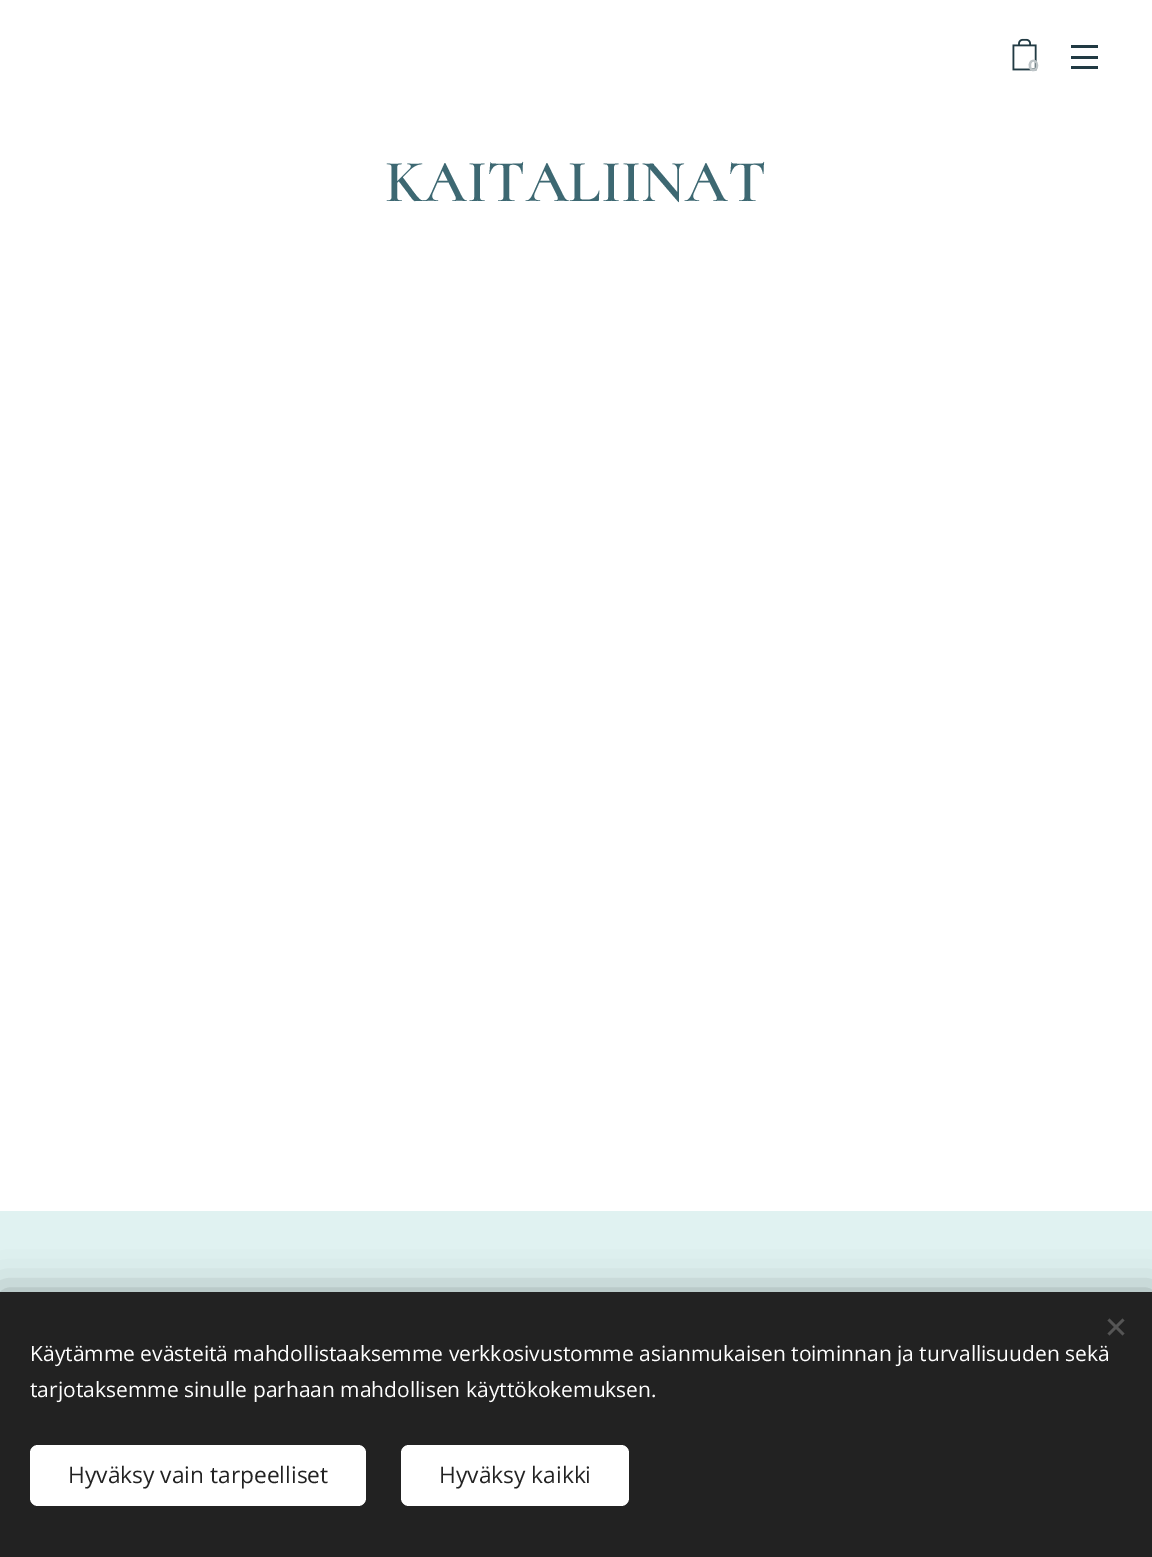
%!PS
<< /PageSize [1152 1557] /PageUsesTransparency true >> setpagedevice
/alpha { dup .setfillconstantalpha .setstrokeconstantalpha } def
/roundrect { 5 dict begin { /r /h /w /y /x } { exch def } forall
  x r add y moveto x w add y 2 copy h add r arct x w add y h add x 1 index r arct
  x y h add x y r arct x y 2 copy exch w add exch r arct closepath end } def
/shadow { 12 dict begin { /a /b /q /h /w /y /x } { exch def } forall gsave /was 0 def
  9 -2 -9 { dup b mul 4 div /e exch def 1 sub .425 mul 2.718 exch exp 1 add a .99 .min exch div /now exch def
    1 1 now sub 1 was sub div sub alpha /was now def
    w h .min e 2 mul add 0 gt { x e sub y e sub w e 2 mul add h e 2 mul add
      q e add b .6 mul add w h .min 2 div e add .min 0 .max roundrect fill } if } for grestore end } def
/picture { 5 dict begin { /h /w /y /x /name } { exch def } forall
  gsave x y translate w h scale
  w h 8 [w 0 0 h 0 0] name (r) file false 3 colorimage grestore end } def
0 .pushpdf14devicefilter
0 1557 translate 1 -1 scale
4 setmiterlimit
1 setgray
0 0 1152 1557 rectfill
(img1.rgb) 1012 38 25 33 picture
/Montserrat-Bold [16 0 0 -16 0 0] selectfont
0.741 0.769 0.78 setrgbcolor
1028 71 moveto (0) show
0.129 0.227 0.263 setrgbcolor
1071 56 27 3 rectfill
1071 45 27 3 rectfill
1071 66 27 3 rectfill
/Cormorant-SemiBold [60 0 0 -60 0 0] selectfont
0.239 0.408 0.447 setrgbcolor
385 201 moveto (KAITALIINAT) show
0.878 0.949 0.945 setrgbcolor
0 1211 1152 81 rectfill
0 setgray
0 1292 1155 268 0 19 0.33 shadow
0.133 setgray
0 1292 1152 265 rectfill
0.333 setgray
newpath 1107.5 1333.5 moveto 1122.5 1318.5 lineto 1124.5 1320.5 lineto 1109.5 1335.5 lineto closepath fill
newpath 1109.5 1318.5 moveto 1124.5 1333.5 lineto 1122.5 1335.5 lineto 1107.5 1320.5 lineto closepath fill
/OpenSans-Regular [21 0 0 -21 0 0] selectfont
1 setgray
30 1361 moveto (Käytämme evästeitä mahdollistaaksemme verkkosivustomme asianmukaisen toiminnan ja turvallisuuden sekä) show
30 1397 moveto (tarjotaksemme sinulle parhaan mahdollisen käyttökokemuksen.) show
30 1445 336 61 8 roundrect fill
/OpenSans-Regular [22.75 0 0 -22.75 0 0] selectfont
0.133 setgray
68 1483 moveto (Hyväksy vain tarpeelliset) show
1 setgray
401 1445 228 61 8 roundrect fill
0.133 setgray
439 1483 moveto (Hyväksy kaikki) show
.poppdf14devicefilter showpage
